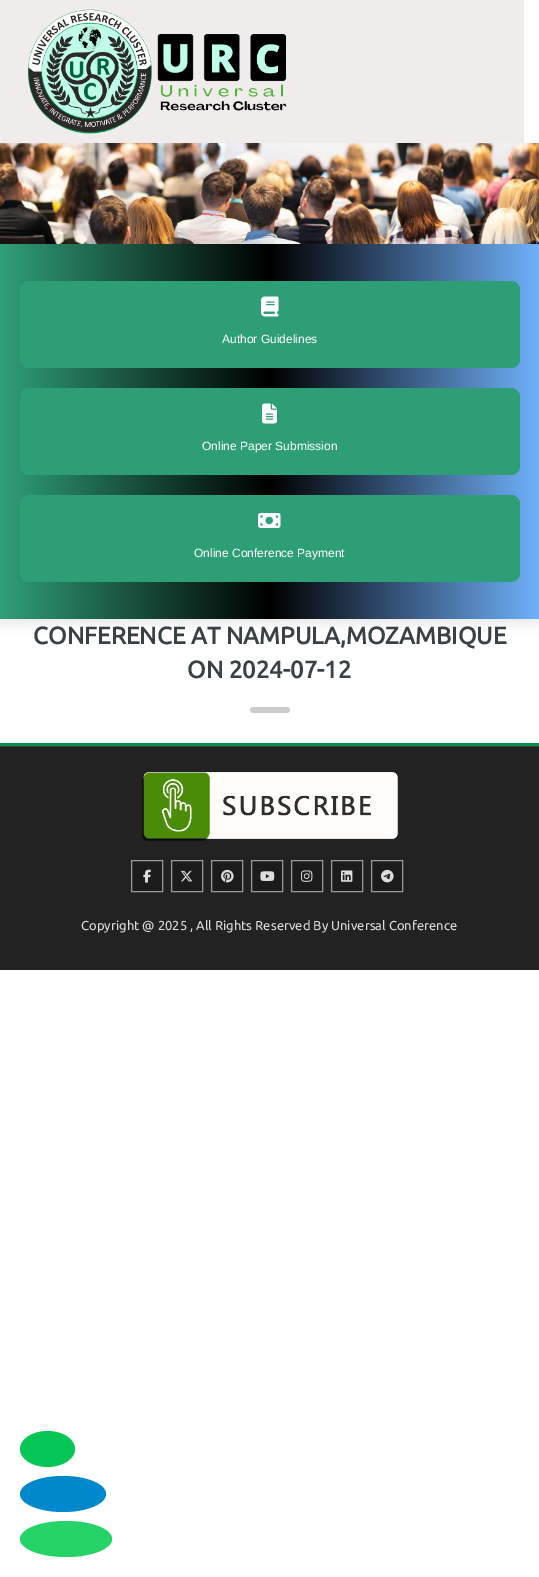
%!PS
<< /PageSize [539 1577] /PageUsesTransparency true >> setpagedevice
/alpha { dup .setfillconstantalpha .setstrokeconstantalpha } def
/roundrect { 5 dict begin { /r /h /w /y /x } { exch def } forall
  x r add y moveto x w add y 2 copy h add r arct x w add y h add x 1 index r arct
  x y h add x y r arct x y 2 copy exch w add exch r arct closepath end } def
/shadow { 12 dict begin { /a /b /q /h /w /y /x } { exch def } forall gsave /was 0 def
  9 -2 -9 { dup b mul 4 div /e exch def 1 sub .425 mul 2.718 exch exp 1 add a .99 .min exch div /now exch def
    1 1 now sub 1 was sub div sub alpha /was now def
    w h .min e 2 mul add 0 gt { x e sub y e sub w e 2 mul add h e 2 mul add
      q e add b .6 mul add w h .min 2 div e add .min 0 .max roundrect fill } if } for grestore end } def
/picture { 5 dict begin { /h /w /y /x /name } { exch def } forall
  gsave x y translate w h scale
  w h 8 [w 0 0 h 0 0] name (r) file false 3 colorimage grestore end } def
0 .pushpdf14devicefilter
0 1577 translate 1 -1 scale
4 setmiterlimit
1 setgray
0 0 539 1577 rectfill
0.945 0.925 0.925 setrgbcolor
0 0 524 143 rectfill
(img1.rgb) 27 9 260 125 picture
0 setgray
0 248 539 375 0 6 0.1 shadow
(img2.rgb) 0 143 539 101 picture
gsave newpath 0 244 moveto 539 244 lineto 539 619 lineto 0 619 lineto closepath clip newpath
<< /ShadingType 2 /ColorSpace /DeviceRGB /Coords [0 432 539 432] /Extend [true true] /Function << /FunctionType 3 /Domain [0 1] /Functions [<< /FunctionType 2 /Domain [0 1] /C0 [0.188 0.624 0.478] /C1 [0 0 0] /N 1 >> << /FunctionType 2 /Domain [0 1] /C0 [0 0 0] /C1 [0.435 0.694 0.988] /N 1 >>] /Bounds [0.5] /Encode [0 1 0 1] >> >> shfill grestore
0.18 0.62 0.467 setrgbcolor
20 281 500 87 9 roundrect fill
(img3.rgb) 261 296 18 21 picture
/LiberationSans-Regular [12 0 0 -12 0 0] selectfont
1 setgray
222 343 moveto (Author Guidelines) show
0.18 0.62 0.467 setrgbcolor
20 388 500 87 9 roundrect fill
(img4.rgb) 262 403 15 21 picture
1 setgray
202 450 moveto (Online Paper Submission) show
0.18 0.62 0.467 setrgbcolor
20 495 500 87 9 roundrect fill
(img5.rgb) 258 513 23 15 picture
1 setgray
194 557 moveto (Online Conference Payment) show
/Ubuntu-Bold [24 0 0 -24 0 0] selectfont
0.227 0.255 0.271 setrgbcolor
33 644 moveto (CONFERENCE AT NAMPULA,MOZAMBIQUE) show
187 678 moveto (ON 2024-07-12) show
0.8 setgray
250 707 40 6 3 roundrect fill
0 0.573 0.275 setrgbcolor
0 743 539 3 rectfill
0.133 setgray
0 747 539 223 rectfill
0.227 setgray
0 746 539 1 rectfill
(img6.rgb) 142 772 256 69 picture
0.106 setgray
newpath 131.5 860.5 moveto 162.5 860.5 lineto 162.5 891.5 lineto 131.5 891.5 lineto closepath gsave fill grestore
0.6 setgray
stroke
(img7.rgb) 143 869 8 14 picture
0.106 setgray
newpath 171.5 860.5 moveto 202.5 860.5 lineto 202.5 891.5 lineto 171.5 891.5 lineto closepath gsave fill grestore
0.6 setgray
stroke
(img8.rgb) 180 870 13 12 picture
0.106 setgray
newpath 211.5 860.5 moveto 242.5 860.5 lineto 242.5 891.5 lineto 211.5 891.5 lineto closepath gsave fill grestore
0.6 setgray
stroke
(img9.rgb) 221 869 13 14 picture
0.106 setgray
newpath 251.5 860.5 moveto 282.5 860.5 lineto 282.5 891.5 lineto 251.5 891.5 lineto closepath gsave fill grestore
0.6 setgray
stroke
(img10.rgb) 260 871 15 10 picture
0.106 setgray
newpath 291.5 860.5 moveto 322.5 860.5 lineto 322.5 891.5 lineto 291.5 891.5 lineto closepath gsave fill grestore
0.6 setgray
stroke
(img11.rgb) 301 870 12 12 picture
0.106 setgray
newpath 331.5 860.5 moveto 362.5 860.5 lineto 362.5 891.5 lineto 331.5 891.5 lineto closepath gsave fill grestore
0.6 setgray
stroke
(img12.rgb) 341 870 12 12 picture
0.106 setgray
newpath 371.5 860.5 moveto 402.5 860.5 lineto 402.5 891.5 lineto 371.5 891.5 lineto closepath gsave fill grestore
0.6 setgray
stroke
(img13.rgb) 381 869 13 14 picture
/Ubuntu-Regular [13 0 0 -13 0 0] selectfont
0.867 setgray
81 930 moveto (Copyright @ 2025 , All Rights Reserved By Universal Conference) show
0.024 0.78 0.333 setrgbcolor
newpath 47.5 1431 moveto 62.5 1431 75 1439 75 1449 curveto 75 1459 62.5 1467 47.5 1467 curveto 32.5 1467 20 1459 20 1449 curveto 20 1439 32.5 1431 47.5 1431 curveto closepath fill
0 0.533 0.8 setrgbcolor
newpath 63 1476 moveto 86.5 1476 106 1484 106 1494 curveto 106 1504 86.5 1512 63 1512 curveto 39.5 1512 20 1504 20 1494 curveto 20 1484 39.5 1476 63 1476 curveto closepath fill
0.145 0.827 0.4 setrgbcolor
newpath 66 1521 moveto 91.5 1521 112 1529 112 1539 curveto 112 1549 91.5 1557 66 1557 curveto 40.5 1557 20 1549 20 1539 curveto 20 1529 40.5 1521 66 1521 curveto closepath fill
.poppdf14devicefilter showpage
